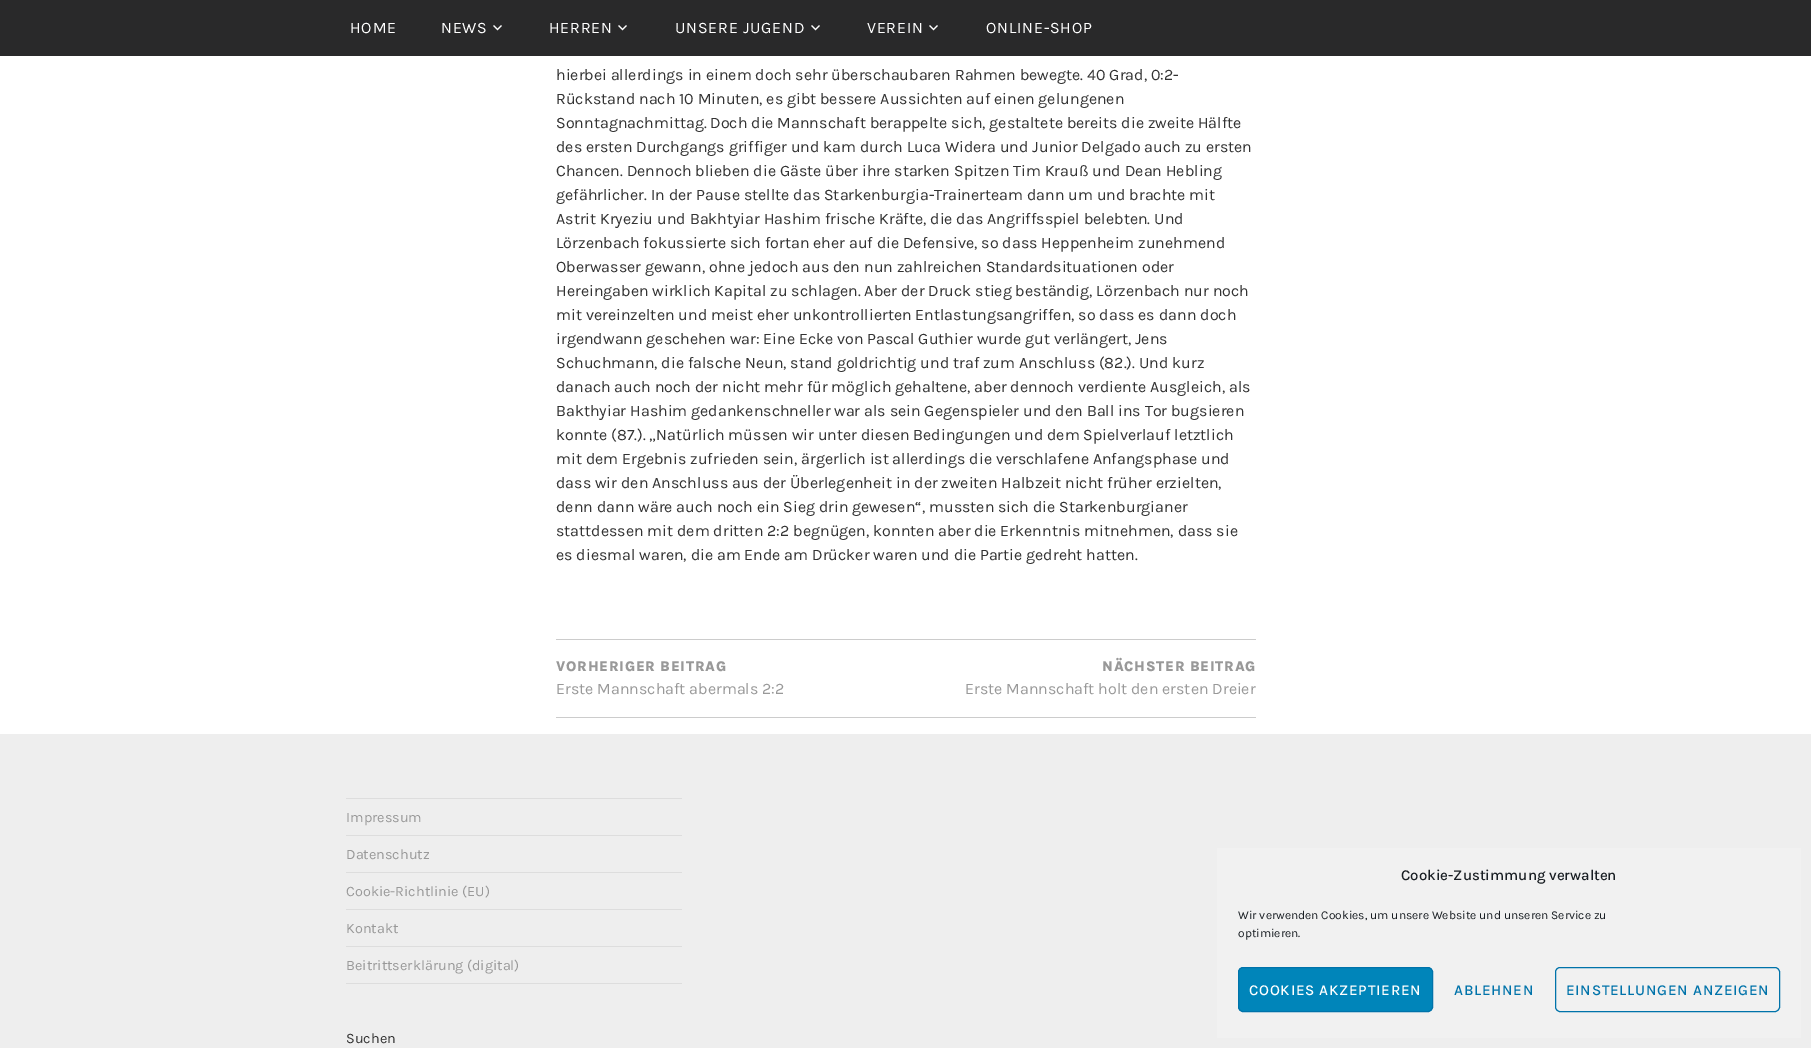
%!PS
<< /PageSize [1811 1048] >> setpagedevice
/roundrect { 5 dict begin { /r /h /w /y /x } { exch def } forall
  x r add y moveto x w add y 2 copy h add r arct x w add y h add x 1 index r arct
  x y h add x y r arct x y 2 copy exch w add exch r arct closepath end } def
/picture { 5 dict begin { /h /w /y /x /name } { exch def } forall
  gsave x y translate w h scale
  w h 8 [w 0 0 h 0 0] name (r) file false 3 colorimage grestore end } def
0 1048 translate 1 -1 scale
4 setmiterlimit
1 setgray
0 0 1811 1048 rectfill
0.161 0.161 0.165 setrgbcolor
0 0 1811 56 rectfill
/Karla-Regular [16 0 0 -16 0 0] selectfont
1 setgray
350 33 moveto 0.75 0 (HOME) ashow
441 33 moveto 0.75 0 (NEWS) ashow
(img1.rgb) 493 25 9 6 picture
549 33 moveto 0.75 0 (HERREN) ashow
(img1.rgb) 618 25 9 6 picture
675 33 moveto 0.75 0 (UNSERE JUGEND) ashow
(img1.rgb) 811 25 9 6 picture
867 33 moveto 0.75 0 (VEREIN) ashow
(img1.rgb) 929 25 9 6 picture
986 33 moveto 0.75 0 (ONLINE-SHOP) ashow
0.2 setgray
556 80 moveto (hierbei allerdings in einem doch sehr überschaubaren Rahmen bewegte. 40 Grad, 0:2-) show
556 104 moveto (Rückstand nach 10 Minuten, es gibt bessere Aussichten auf einen gelungenen) show
556 128 moveto (Sonntagnachmittag. Doch die Mannschaft berappelte sich, gestaltete bereits die zweite Hälfte) show
556 152 moveto (des ersten Durchgangs griffiger und kam durch Luca Widera und Junior Delgado auch zu ersten) show
556 176 moveto (Chancen. Dennoch blieben die Gäste über ihre starken Spitzen Tim Krauß und Dean Hebling) show
556 200 moveto (gefährlicher. In der Pause stellte das Starkenburgia-Trainerteam dann um und brachte mit) show
556 224 moveto (Astrit Kryeziu und Bakhtyiar Hashim frische Kräfte, die das Angriffsspiel belebten. Und) show
556 248 moveto (Lörzenbach fokussierte sich fortan eher auf die Defensive, so dass Heppenheim zunehmend) show
556 272 moveto (Oberwasser gewann, ohne jedoch aus den nun zahlreichen Standardsituationen oder) show
556 296 moveto (Hereingaben wirklich Kapital zu schlagen. Aber der Druck stieg beständig, Lörzenbach nur noch) show
556 320 moveto (mit vereinzelten und meist eher unkontrollierten Entlastungsangriffen, so dass es dann doch) show
556 344 moveto (irgendwann geschehen war: Eine Ecke von Pascal Guthier wurde gut verlängert, Jens) show
556 368 moveto (Schuchmann, die falsche Neun, stand goldrichtig und traf zum Anschluss \(82.\). Und kurz) show
556 392 moveto (danach auch noch der nicht mehr für möglich gehaltene, aber dennoch verdiente Ausgleich, als) show
556 416 moveto (Bakthyiar Hashim gedankenschneller war als sein Gegenspieler und den Ball ins Tor bugsieren) show
556 440 moveto (konnte \(87.\). „Natürlich müssen wir unter diesen Bedingungen und dem Spielverlauf letztlich) show
556 464 moveto (mit dem Ergebnis zufrieden sein, ärgerlich ist allerdings die verschlafene Anfangsphase und) show
556 488 moveto (dass wir den Anschluss aus der Überlegenheit in der zweiten Halbzeit nicht früher erzielten,) show
556 512 moveto (denn dann wäre auch noch ein Sieg drin gewesen“, mussten sich die Starkenburgianer) show
556 536 moveto (stattdessen mit dem dritten 2:2 begnügen, konnten aber die Erkenntnis mitnehmen, dass sie) show
556 560 moveto (es diesmal waren, die am Ende am Drücker waren und die Partie gedreht hatten.) show
0.8 setgray
556 639 700 1 rectfill
556 717 700 1 rectfill
/Karla-ExtraBold [14.4 0 0 -14.4 0 0] selectfont
0.6 setgray
556 671 moveto 0.75 0 (VORHERIGER BEITRAG) ashow
/Karla-Regular [16 0 0 -16 0 0] selectfont
556 694 moveto (Erste Mannschaft abermals 2:2) show
/Karla-ExtraBold [14.4 0 0 -14.4 0 0] selectfont
1102 671 moveto 0.75 0 (NÄCHSTER BEITRAG) ashow
/Karla-Regular [16 0 0 -16 0 0] selectfont
965 694 moveto (Erste Mannschaft holt den ersten Dreier) show
0.933 setgray
0 734 1811 314 rectfill
0.867 setgray
346 798 336 1 rectfill
346 835 336 1 rectfill
/Karla-Regular [14.4 0 0 -14.4 0 0] selectfont
0.6 setgray
346 822 moveto (Impressum) show
0.867 setgray
346 872 336 1 rectfill
0.6 setgray
346 859 moveto (Datenschutz) show
0.867 setgray
346 909 336 1 rectfill
0.6 setgray
346 896 moveto (Cookie-Richtlinie \(EU\)) show
0.867 setgray
346 946 336 1 rectfill
0.6 setgray
346 933 moveto (Kontakt) show
0.867 setgray
346 983 336 1 rectfill
0.6 setgray
346 970 moveto (Beitrittserklärung \(digital\)) show
0.2 setgray
346 1043 moveto (Suchen) show
0.945 setgray
1217 848 584 190 rectfill
/Karla-Medium [15 0 0 -15 0 0] selectfont
0.098 0.118 0.137 setrgbcolor
1401 880 moveto (Cookie-Zustimmung verwalten) show
/Karla-Regular [12 0 0 -12 0 0] selectfont
1238 919 moveto (Wir verwenden Cookies, um unsere Website und unseren Service zu) show
1238 937 moveto (optimieren.) show
0 0.522 0.729 setrgbcolor
1238.5 967.5 194 44 4.5 roundrect gsave fill grestore
0 0.451 0.667 setrgbcolor
stroke
/Karla-Medium [15 0 0 -15 0 0] selectfont
1 setgray
1249 995 moveto 0.75 0 (COOKIES AKZEPTIEREN) ashow
0 0.451 0.667 setrgbcolor
1454 995 moveto 0.75 0 (ABLEHNEN) ashow
1555.5 967.5 224 44 4.5 roundrect stroke
1566 995 moveto 0.75 0 (EINSTELLUNGEN ANZEIGEN) ashow
showpage
